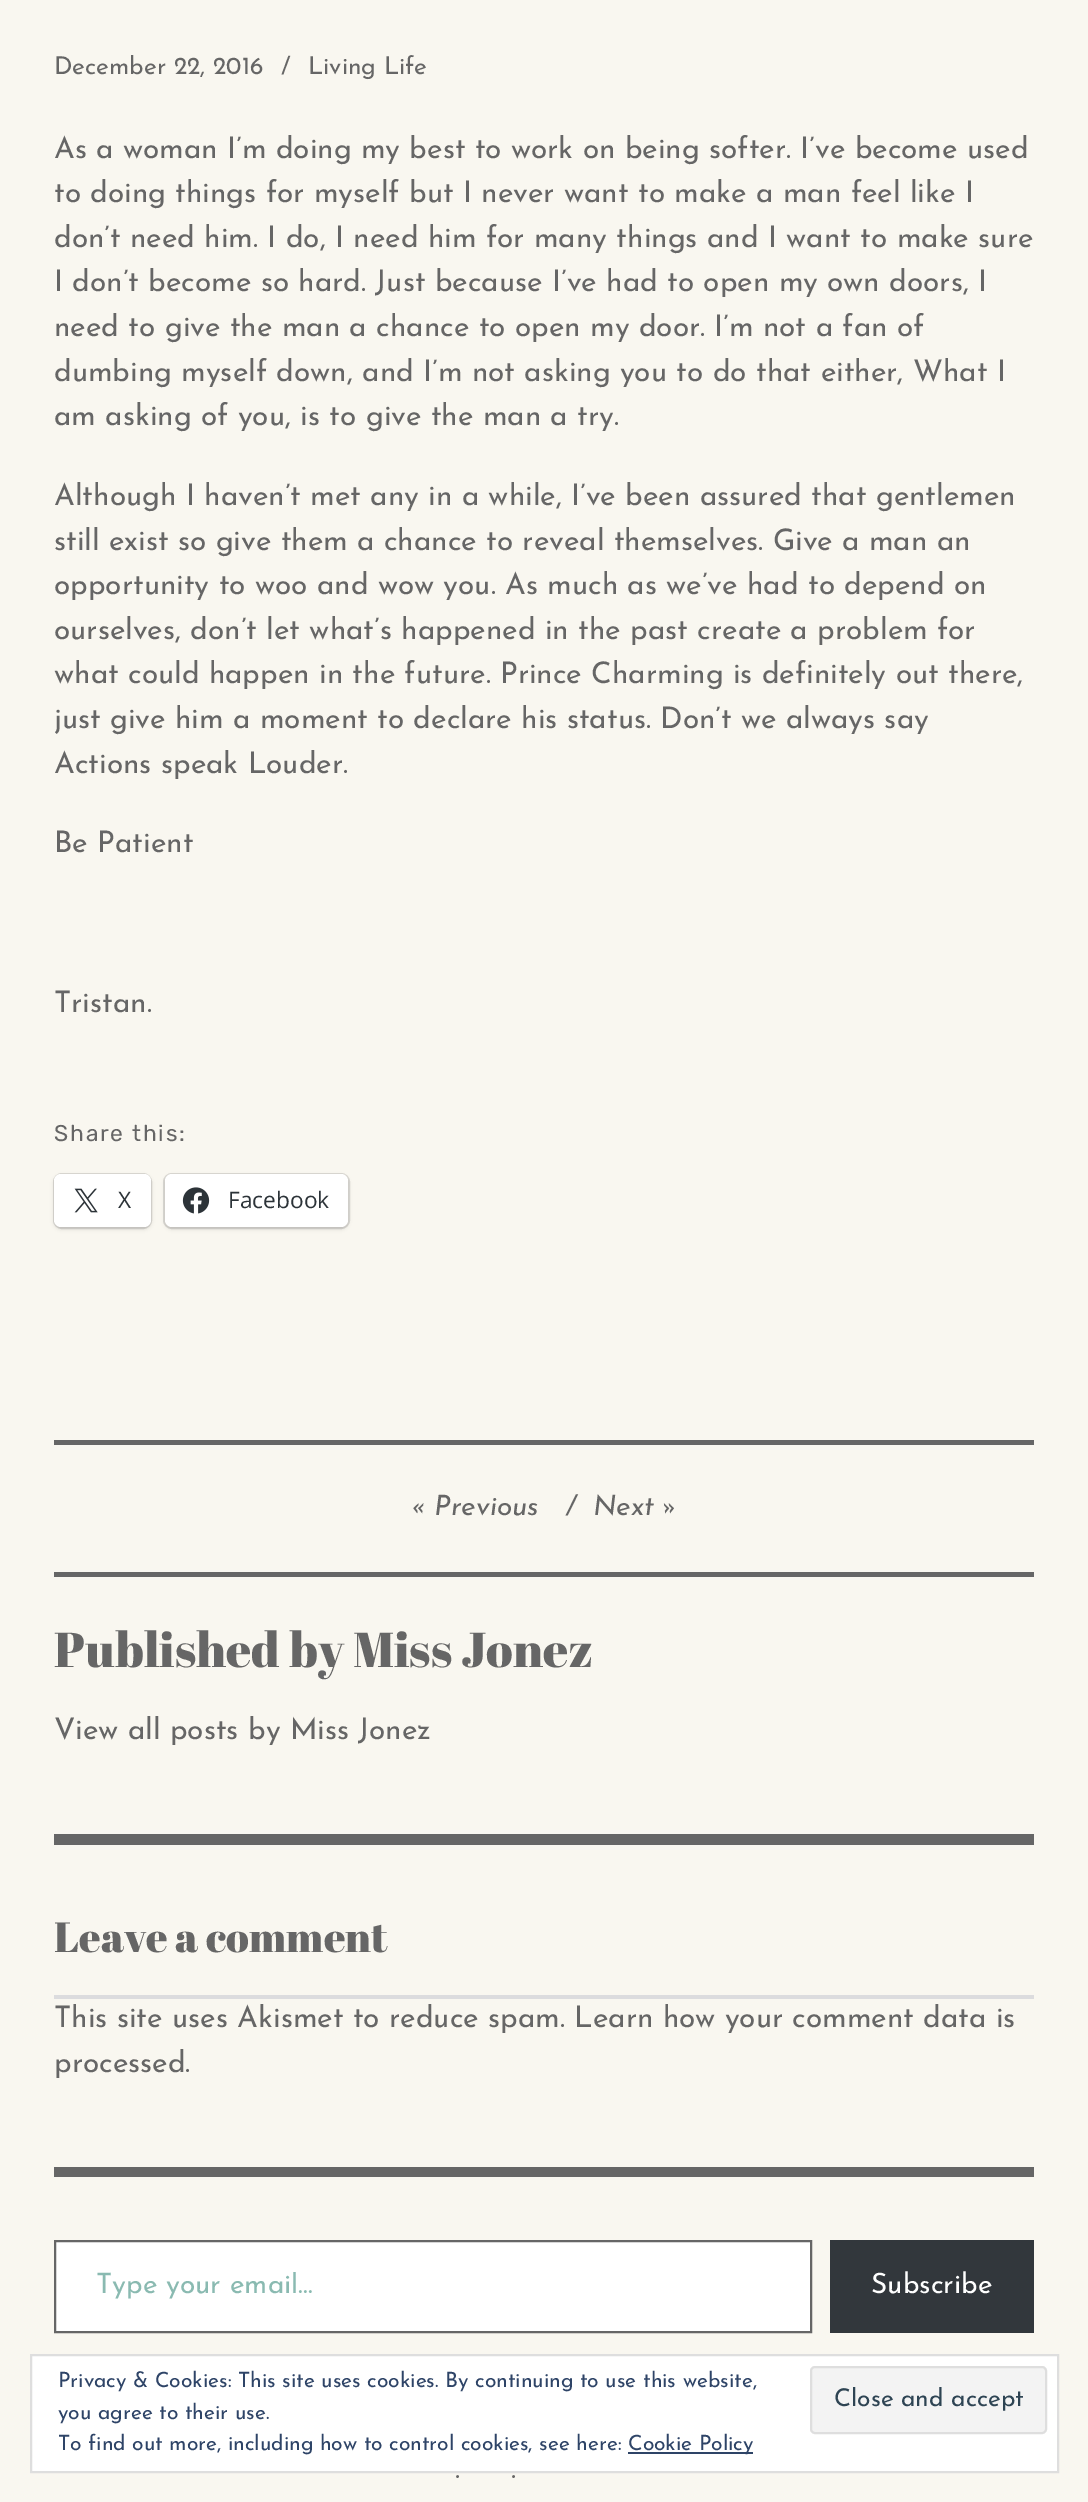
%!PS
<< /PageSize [1088 2502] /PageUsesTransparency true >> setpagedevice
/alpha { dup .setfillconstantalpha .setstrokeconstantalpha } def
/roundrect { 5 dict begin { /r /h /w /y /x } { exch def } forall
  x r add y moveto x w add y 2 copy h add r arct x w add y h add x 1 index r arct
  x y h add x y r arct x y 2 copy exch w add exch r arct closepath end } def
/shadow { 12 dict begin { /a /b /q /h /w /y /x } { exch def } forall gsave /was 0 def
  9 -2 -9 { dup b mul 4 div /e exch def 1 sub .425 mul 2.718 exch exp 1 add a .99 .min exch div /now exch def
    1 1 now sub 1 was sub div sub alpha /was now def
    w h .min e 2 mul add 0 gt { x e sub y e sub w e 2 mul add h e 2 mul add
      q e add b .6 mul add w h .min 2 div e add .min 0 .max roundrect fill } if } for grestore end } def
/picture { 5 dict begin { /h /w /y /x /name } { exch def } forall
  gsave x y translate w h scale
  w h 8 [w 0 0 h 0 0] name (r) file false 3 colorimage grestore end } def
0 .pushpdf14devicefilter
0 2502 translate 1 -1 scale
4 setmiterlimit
0.976 0.969 0.941 setrgbcolor
0 0 1088 2502 rectfill
/JosefinSans-Regular [24.5 0 0 -24.5 0 0] selectfont
0.4 setgray
54 74 moveto (December 22, 2016) show
281 74 moveto (/) show
308 74 moveto (Living Life) show
/JosefinSans-Regular [29.75 0 0 -29.75 0 0] selectfont
54 158 moveto (As a woman I’m doing my best to work on being softer. I’ve become used) show
54 202 moveto (to doing things for myself but I never want to make a man feel like I) show
54 247 moveto (don’t need him. I do, I need him for many things and I want to make sure) show
54 291 moveto (I don’t become so hard. Just because I’ve had to open my own doors, I) show
54 336 moveto (need to give the man a chance to open my door. I’m not a fan of) show
54 381 moveto (dumbing myself down, and I’m not asking you to do that either, What I) show
54 425 moveto (am asking of you, is to give the man a try.) show
54 505 moveto (Although I haven’t met any in a while, I’ve been assured that gentlemen) show
54 550 moveto (still exist so give them a chance to reveal themselves. Give a man an) show
54 594 moveto (opportunity to woo and wow you. As much as we’ve had to depend on) show
54 639 moveto (ourselves, don’t let what’s happened in the past create a problem for) show
54 683 moveto (what could happen in the future. Prince Charming is definitely out there,) show
54 728 moveto (just give him a moment to declare his status. Don’t we always say) show
54 773 moveto (Actions speak Louder.) show
54 852 moveto (Be Patient) show
54 1012 moveto (Tristan.) show
/Rubik-Regular [22.75 0 0 -22.75 0 0] selectfont
54 1141 moveto 1.75 0 (Share this:) ashow
0.859 0.851 0.827 setrgbcolor
2 setlinewidth
54 1174 97 54 8 roundrect stroke
0 setgray
54 1176 97 53 7 2 0.12 shadow
1 setgray
54 1174 97 53 7 roundrect fill
(img1.rgb) 74 1188 24 25 picture
/OpenSans-Regular [22.75 0 0 -22.75 0 0] selectfont
0.173 0.2 0.22 setrgbcolor
118 1208 moveto (X) show
0.859 0.851 0.827 setrgbcolor
164 1174 185 54 8 roundrect stroke
0 setgray
165 1176 183 53 7 2 0.12 shadow
1 setgray
165 1174 183 53 7 roundrect fill
(img2.rgb) 182 1187 28 27 picture
0.173 0.2 0.22 setrgbcolor
228 1208 moveto (Facebook) show
0.4 setgray
54 1440 980 5 rectfill
/JosefinSans-Italic [28 0 0 -28 0 0] selectfont
409 1515 moveto (« Previous) show
565 1515 moveto (/) show
593 1515 moveto (Next ») show
54 1572 980 5 rectfill
/AbrilFatface-Regular [49 0 0 -49 0 0] selectfont
54 1667 moveto (Published by Miss Jonez) show
/JosefinSans-Regular [29.75 0 0 -29.75 0 0] selectfont
54 1739 moveto (View all posts by Miss Jonez) show
54 1834 980 11 rectfill
/AbrilFatface-Regular [42 0 0 -42 0 0] selectfont
54 1952 moveto (Leave a comment) show
0.863 0.863 0.871 setrgbcolor
54 1995 980 4 rectfill
/JosefinSans-Regular [29.75 0 0 -29.75 0 0] selectfont
0.4 setgray
54 2027 moveto (This site uses Akismet to reduce spam. Learn how your comment data is) show
54 2072 moveto (processed.) show
54 2167 980 10 rectfill
1 setgray
newpath 55 2241 moveto 811 2241 lineto 811 2332 lineto 55 2332 lineto closepath gsave fill grestore
0.4 setgray
stroke
gsave
96 2272 674 28 rectclip
/JosefinSans-Regular [28 0 0 -28 0 0] selectfont
0.541 0.729 0.694 setrgbcolor
96 2293 moveto (Type your email…) show
grestore
0.196 0.216 0.235 setrgbcolor
830 2240 204 93 rectfill
/JosefinSans-Regular [28 0 0 -28 0 0] selectfont
1 setgray
871 2293 moveto (Subscribe) show
/JosefinSans-Italic [28 0 0 -28 0 0] selectfont
0.4 setgray
455 2478 moveto (.) show
511 2478 moveto (.) show
1 setgray
newpath 31 2355 moveto 1058 2355 lineto 1058 2472 lineto 31 2472 lineto closepath gsave fill grestore
0.871 setgray
stroke
/JosefinSans-Regular [21 0 0 -21 0 0] selectfont
0.18 0.267 0.404 setrgbcolor
58 2387 moveto (Privacy & Cookies: This site uses cookies. By continuing to use this website,) show
58 2419 moveto (you agree to their use.) show
0.953 setgray
811 2367 235 66 4 roundrect gsave fill grestore
0.871 setgray
stroke
/JosefinSans-Regular [24.5 0 0 -24.5 0 0] selectfont
0.18 0.267 0.325 setrgbcolor
834 2406 moveto (Close and accept) show
/JosefinSans-Regular [21 0 0 -21 0 0] selectfont
0.18 0.267 0.404 setrgbcolor
58 2450 moveto (To find out more, including how to control cookies, see here:) show
628 2452 125 2 rectfill
628 2450 moveto (Cookie Policy) show
.poppdf14devicefilter showpage
